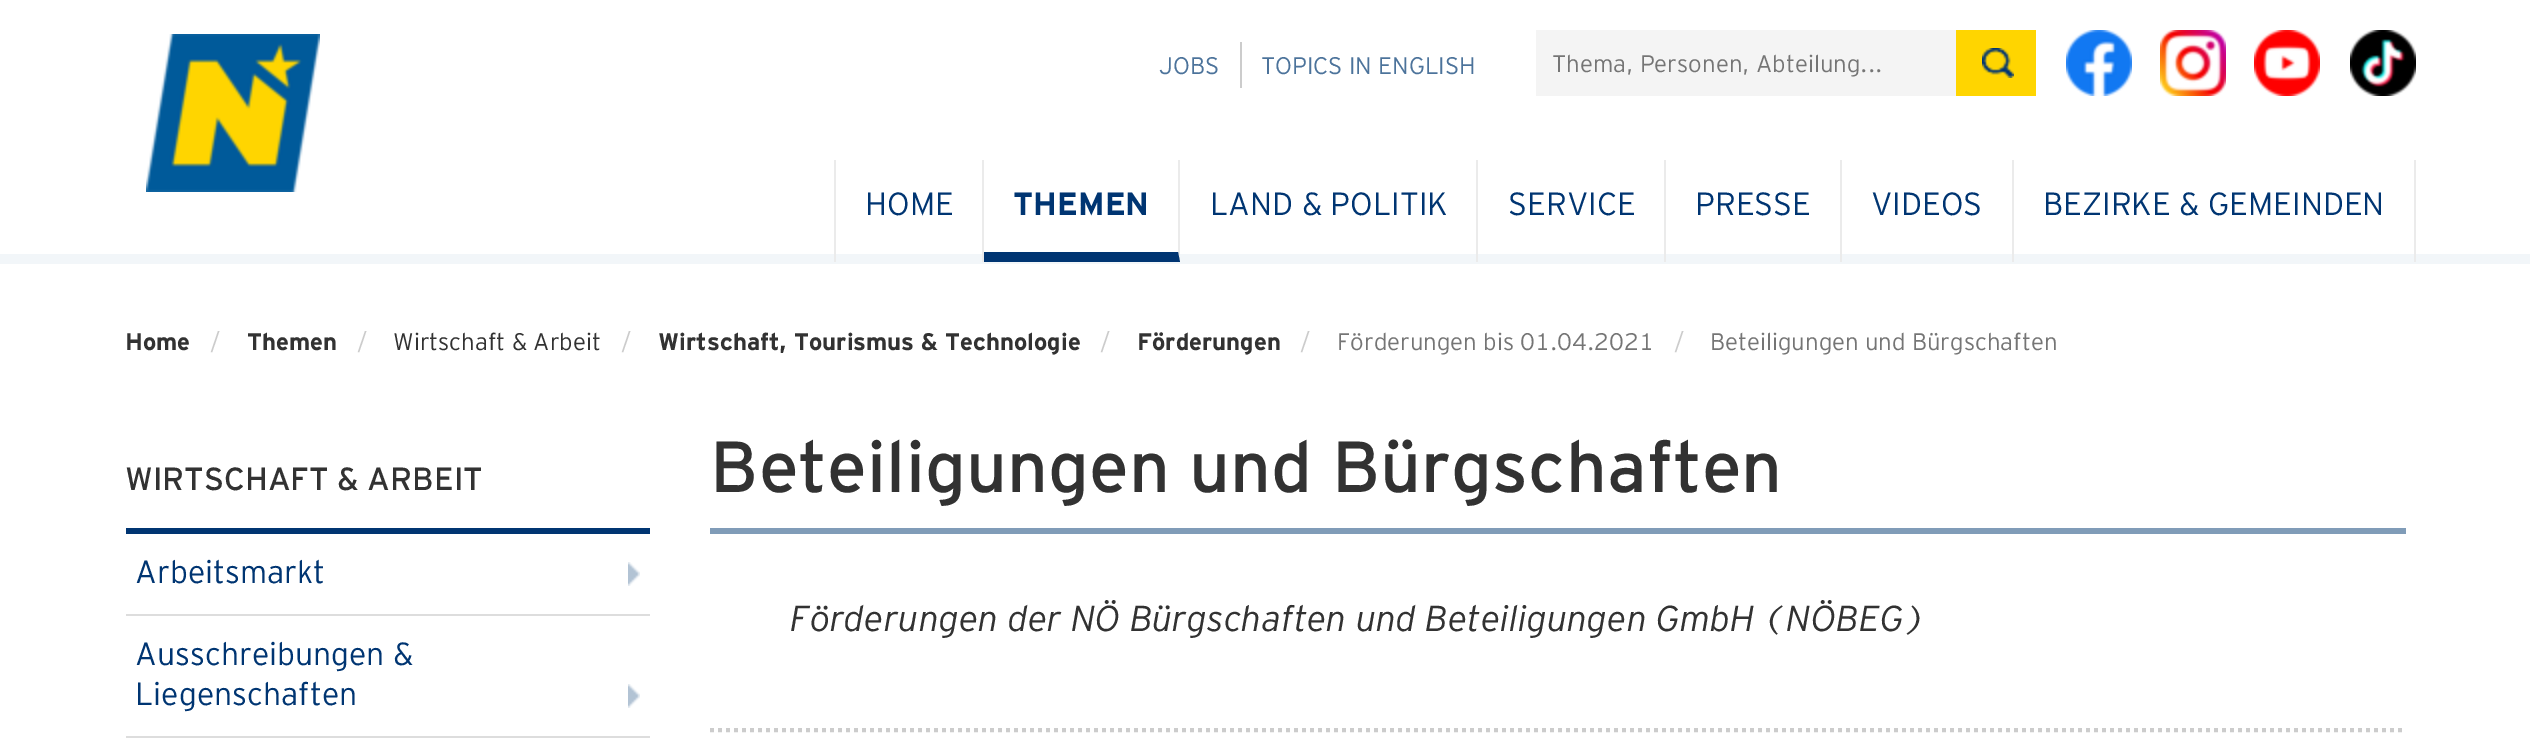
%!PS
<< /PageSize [2530 743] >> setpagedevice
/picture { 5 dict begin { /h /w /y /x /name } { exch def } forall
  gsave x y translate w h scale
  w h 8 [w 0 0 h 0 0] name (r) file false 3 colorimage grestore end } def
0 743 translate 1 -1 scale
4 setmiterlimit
1 setgray
0 0 2530 743 rectfill
0.949 0.965 0.976 setrgbcolor
0 254 2530 10 rectfill
(img1.rgb) 146 34 174 158 picture
/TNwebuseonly-Light [24 0 0 -24 0 0] selectfont
0.298 0.451 0.608 setrgbcolor
1159 74 moveto (JOBS) show
0.8 setgray
1240 42 2 46 rectfill
0.298 0.451 0.608 setrgbcolor
1261 74 moveto (TOPICS IN ENGLISH) show
0.957 setgray
1536 30 420 66 rectfill
0.459 setgray
1552 72 moveto (Thema, Personen, Abteilung...) show
1 0.835 0 setrgbcolor
1956 30 80 66 rectfill
(img2.rgb) 1982 48 32 30 picture
(img3.rgb) 2066 30 66 66 picture
(img4.rgb) 2160 30 66 66 picture
(img5.rgb) 2254 30 66 66 picture
(img6.rgb) 2350 30 66 66 picture
0.922 setgray
982 160 2 102 rectfill
834 160 2 102 rectfill
/TNwebuseonly-Light [32 0 0 -32 0 0] selectfont
0 0.208 0.447 setrgbcolor
865 215 moveto (HOME) show
0.922 setgray
newpath 1180 160 moveto 1180 262 lineto 1178 252 lineto 1178 160 lineto closepath fill
0 0.208 0.447 setrgbcolor
newpath 1180 262 moveto 984 262 lineto 984 252 lineto 1178 252 lineto closepath fill
/TNwebuseonly-Bold [32 0 0 -32 0 0] selectfont
1013 215 moveto (THEMEN) show
0.922 setgray
1476 160 2 102 rectfill
/TNwebuseonly-Light [32 0 0 -32 0 0] selectfont
0 0.208 0.447 setrgbcolor
1210 215 moveto (LAND & POLITIK) show
0.922 setgray
1664 160 2 102 rectfill
0 0.208 0.447 setrgbcolor
1508 215 moveto (SERVICE) show
0.922 setgray
1840 160 2 102 rectfill
0 0.208 0.447 setrgbcolor
1695 215 moveto (PRESSE) show
0.922 setgray
2012 160 2 102 rectfill
0 0.208 0.447 setrgbcolor
1871 215 moveto (VIDEOS) show
0.922 setgray
2414 160 2 102 rectfill
0 0.208 0.447 setrgbcolor
2043 215 moveto (BEZIRKE & GEMEINDEN) show
/TNwebuseonly-Bold [24 0 0 -24 0 0] selectfont
0.196 setgray
125 350 moveto (Home) show
/TNwebuseonly-Light [24 0 0 -24 0 0] selectfont
0.8 setgray
210 350 moveto (/) show
/TNwebuseonly-Bold [24 0 0 -24 0 0] selectfont
0.196 setgray
247 350 moveto (Themen) show
/TNwebuseonly-Light [24 0 0 -24 0 0] selectfont
0.8 setgray
357 350 moveto (/) show
0.196 setgray
393 350 moveto (Wirtschaft & Arbeit) show
0.8 setgray
621 350 moveto (/) show
/TNwebuseonly-Bold [24 0 0 -24 0 0] selectfont
0.196 setgray
658 350 moveto (Wirtschaft, Tourismus & Technologie) show
/TNwebuseonly-Light [24 0 0 -24 0 0] selectfont
0.8 setgray
1100 350 moveto (/) show
/TNwebuseonly-Bold [24 0 0 -24 0 0] selectfont
0.196 setgray
1137 350 moveto (Förderungen) show
/TNwebuseonly-Light [24 0 0 -24 0 0] selectfont
0.8 setgray
1300 350 moveto (/) show
0.459 setgray
1337 350 moveto (Förderungen bis 01.04.2021) show
0.8 setgray
1674 350 moveto (/) show
0.459 setgray
1710 350 moveto (Beteiligungen und Bürgschaften) show
/TNwebuseonly-Regular [32 0 0 -32 0 0] selectfont
0.196 setgray
125 490 moveto (WIRTSCHAFT & ARBEIT) show
0 0.208 0.447 setrgbcolor
126 528 524 6 rectfill
0.867 setgray
126 614 524 2 rectfill
/TNwebuseonly-Light [32 0 0 -32 0 0] selectfont
0 0.208 0.447 setrgbcolor
135 583 moveto (Arbeitsmarkt) show
(img7.rgb) 628 562 12 24 picture
0.867 setgray
126 736 524 2 rectfill
0 0.208 0.447 setrgbcolor
135 665 moveto (Ausschreibungen &) show
135 705 moveto (Liegenschaften) show
(img7.rgb) 628 684 12 24 picture
0.502 0.612 0.722 setrgbcolor
710 528 1696 6 rectfill
/TNwebuseonly-Regular [72 0 0 -72 0 0] selectfont
0.196 setgray
710 492 moveto (Beteiligungen und Bürgschaften) show
0.8 setgray
4 setlinewidth
[4 4] 0 setdash
newpath 710 730 moveto 2406 730 lineto stroke
/TNwebuseonly-LightItalic [36 0 0 -36 0 0] selectfont
0.196 setgray
790 631 moveto (Förderungen der NÖ Bürgschaften und Beteiligungen GmbH \(NÖBEG\)) show
showpage
